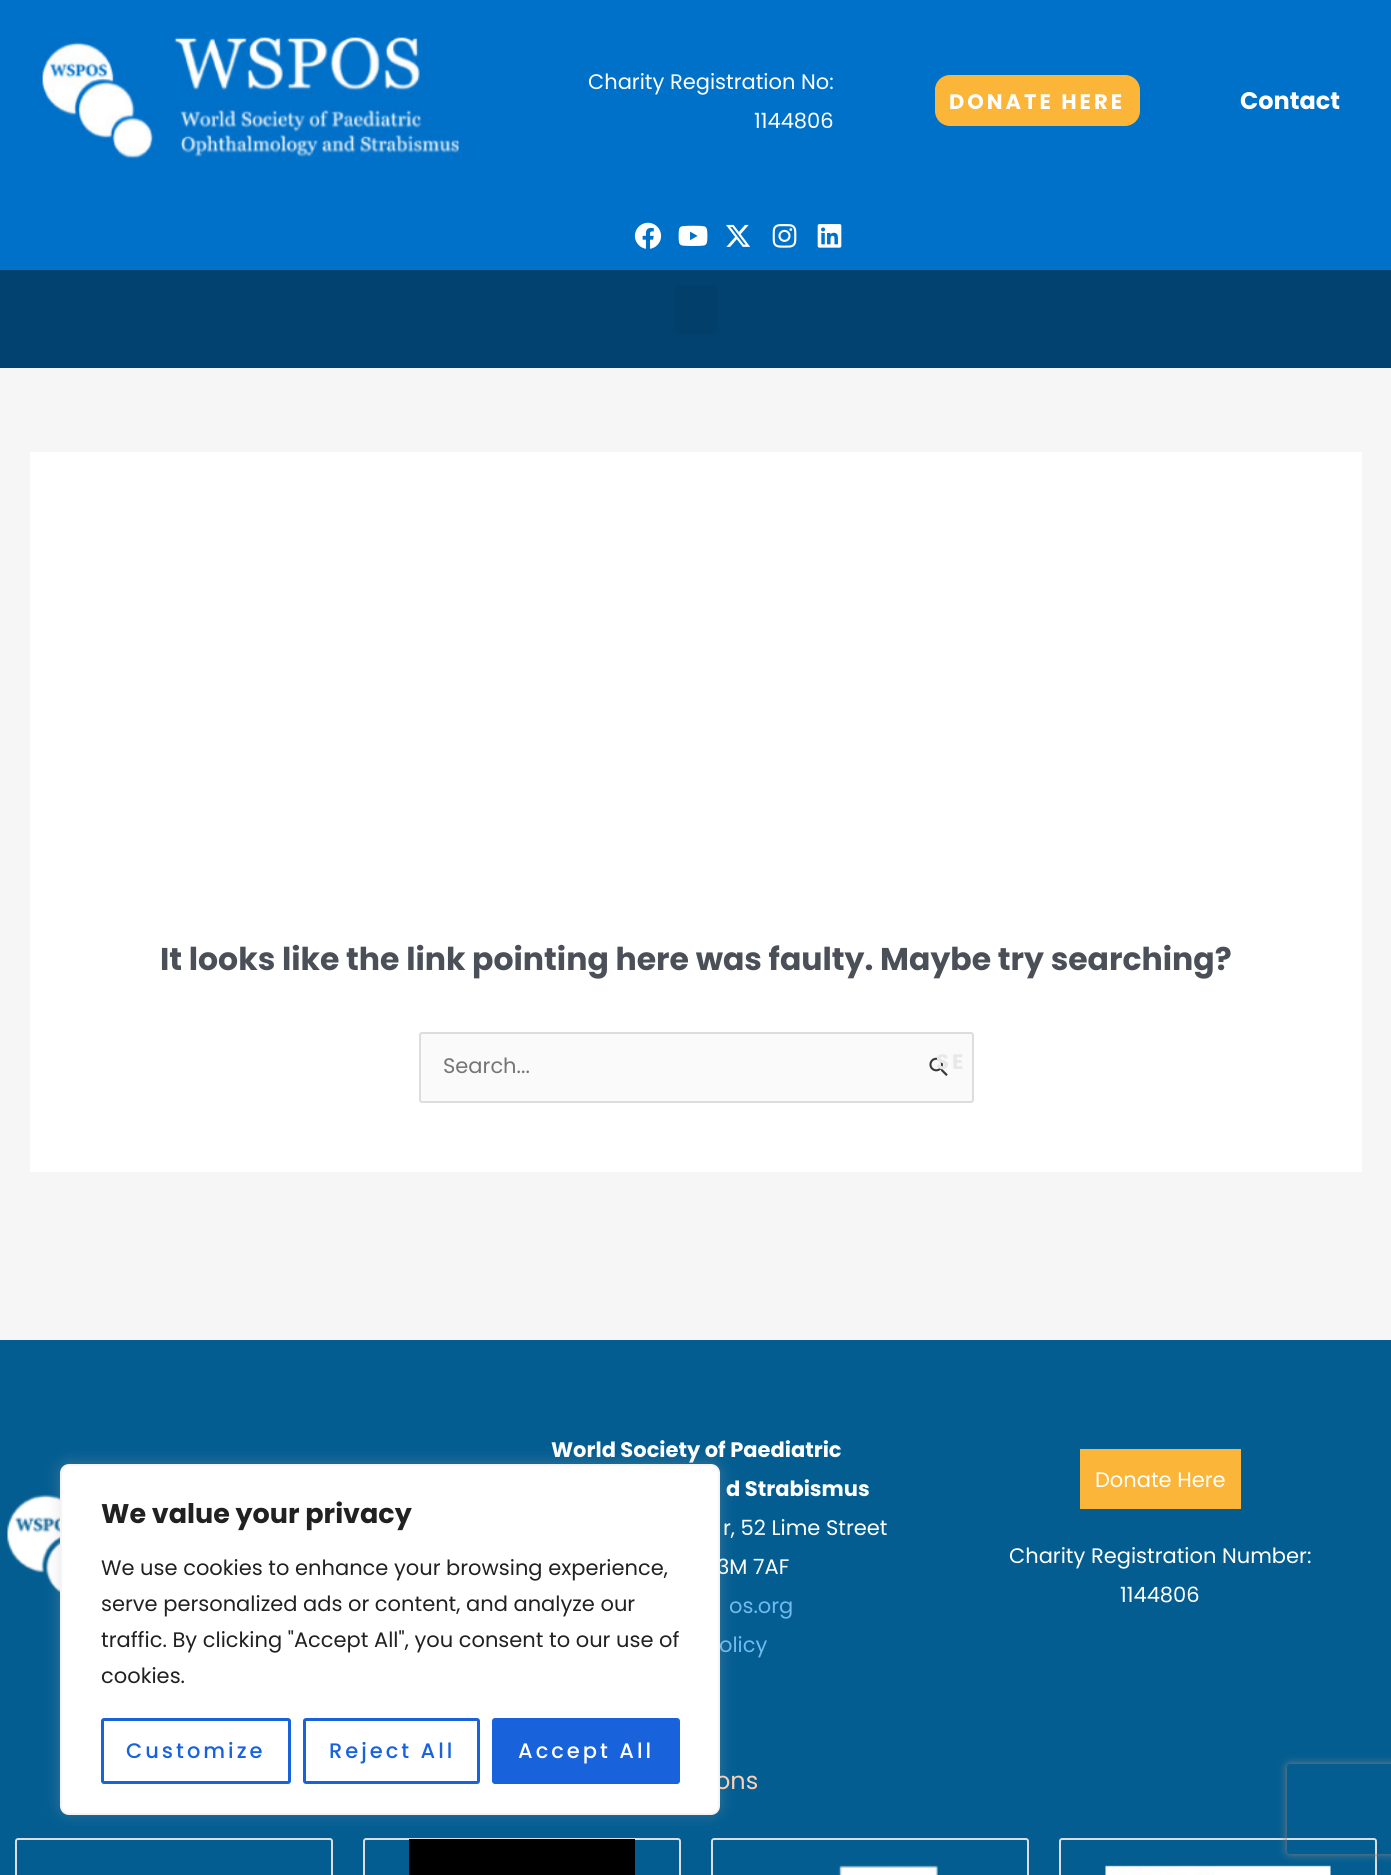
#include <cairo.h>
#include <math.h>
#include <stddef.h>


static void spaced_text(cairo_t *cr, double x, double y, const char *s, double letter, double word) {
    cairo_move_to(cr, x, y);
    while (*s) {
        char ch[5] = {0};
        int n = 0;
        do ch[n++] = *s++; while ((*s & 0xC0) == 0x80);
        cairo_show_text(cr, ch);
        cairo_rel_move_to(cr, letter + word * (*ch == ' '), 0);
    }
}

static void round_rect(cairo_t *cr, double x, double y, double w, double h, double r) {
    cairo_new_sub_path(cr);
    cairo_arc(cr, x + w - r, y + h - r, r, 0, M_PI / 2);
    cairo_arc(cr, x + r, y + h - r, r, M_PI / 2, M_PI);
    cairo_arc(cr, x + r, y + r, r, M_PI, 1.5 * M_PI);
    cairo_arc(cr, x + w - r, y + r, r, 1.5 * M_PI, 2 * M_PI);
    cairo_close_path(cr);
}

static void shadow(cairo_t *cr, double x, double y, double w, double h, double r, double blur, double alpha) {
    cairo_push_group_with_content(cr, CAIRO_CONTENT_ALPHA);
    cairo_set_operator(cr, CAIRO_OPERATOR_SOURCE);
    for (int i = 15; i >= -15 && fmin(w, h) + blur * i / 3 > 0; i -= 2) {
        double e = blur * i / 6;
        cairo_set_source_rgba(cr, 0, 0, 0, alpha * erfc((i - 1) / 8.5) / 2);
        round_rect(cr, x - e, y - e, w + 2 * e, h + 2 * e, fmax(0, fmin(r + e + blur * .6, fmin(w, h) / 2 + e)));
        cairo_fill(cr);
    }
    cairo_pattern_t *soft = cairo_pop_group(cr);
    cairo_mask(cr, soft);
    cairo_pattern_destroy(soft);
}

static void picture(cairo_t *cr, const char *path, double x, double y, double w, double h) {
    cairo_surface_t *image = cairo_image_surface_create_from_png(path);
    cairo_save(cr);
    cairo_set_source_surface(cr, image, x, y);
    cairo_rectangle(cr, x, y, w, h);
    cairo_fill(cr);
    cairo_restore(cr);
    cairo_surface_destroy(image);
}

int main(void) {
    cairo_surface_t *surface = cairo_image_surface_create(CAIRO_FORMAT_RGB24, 1391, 1875);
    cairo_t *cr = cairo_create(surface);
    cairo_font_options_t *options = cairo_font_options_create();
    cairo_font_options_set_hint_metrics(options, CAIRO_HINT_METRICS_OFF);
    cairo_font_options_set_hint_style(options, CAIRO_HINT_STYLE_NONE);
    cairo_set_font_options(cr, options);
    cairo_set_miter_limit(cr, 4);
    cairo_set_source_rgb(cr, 0.961, 0.961, 0.961);
    cairo_paint(cr);
    cairo_set_source_rgb(cr, 0, 0.443, 0.784);
    cairo_rectangle(cr, 0, 0, 1391, 270);
    cairo_fill(cr);
    picture(cr, "img1.png", 35, 35, 432, 128);
    cairo_select_font_face(cr, "Poppins", CAIRO_FONT_SLANT_NORMAL, CAIRO_FONT_WEIGHT_NORMAL);
    cairo_set_font_size(cr, 21);
    cairo_set_source_rgb(cr, 1, 1, 1);
    cairo_move_to(cr, 588, 89);
    cairo_show_text(cr, "Charity Registration No:");
    cairo_move_to(cr, 754, 128);
    cairo_show_text(cr, "1144806");
    cairo_set_source_rgb(cr, 0.984, 0.71, 0.224);
    round_rect(cr, 935, 75, 205, 51, 15);
    cairo_fill(cr);
    cairo_select_font_face(cr, "Poppins", CAIRO_FONT_SLANT_NORMAL, CAIRO_FONT_WEIGHT_BOLD);
    cairo_set_source_rgb(cr, 1, 1, 1);
    spaced_text(cr, 949, 109, "DONATE HERE", 3, 0);
    cairo_set_font_size(cr, 24);
    cairo_move_to(cr, 1240, 109);
    cairo_show_text(cr, "Contact");
    picture(cr, "img2.png", 634, 222, 28, 27);
    picture(cr, "img3.png", 678, 225, 30, 21);
    picture(cr, "img4.png", 726, 224, 25, 23);
    picture(cr, "img5.png", 772, 224, 25, 24);
    picture(cr, "img6.png", 817, 224, 25, 24);
    cairo_set_source_rgb(cr, 0.008, 0.259, 0.443);
    cairo_rectangle(cr, 0, 270, 1391, 98);
    cairo_fill(cr);
    cairo_set_source_rgb(cr, 0.008, 0.247, 0.42);
    round_rect(cr, 675, 285, 42, 50, 5);
    cairo_fill(cr);
    cairo_set_source_rgb(cr, 1, 1, 1);
    cairo_rectangle(cr, 30, 452, 1332, 720);
    cairo_fill(cr);
    cairo_set_font_size(cr, 31.5);
    cairo_set_source_rgb(cr, 0.294, 0.31, 0.345);
    cairo_move_to(cr, 160, 970);
    cairo_show_text(cr, "It looks like the link pointing here was faulty. Maybe try searching?");
    cairo_set_source_rgb(cr, 0.98, 0.98, 0.98);
    round_rect(cr, 420, 1033, 553, 69, 2);
    cairo_fill_preserve(cr);
    cairo_set_source_rgb(cr, 0.867, 0.867, 0.867);
    cairo_stroke(cr);
    cairo_select_font_face(cr, "Poppins", CAIRO_FONT_SLANT_NORMAL, CAIRO_FONT_WEIGHT_NORMAL);
    cairo_set_font_size(cr, 21);
    cairo_set_source_rgb(cr, 0.459, 0.459, 0.459);
    cairo_move_to(cr, 443, 1073);
    cairo_show_text(cr, "Search...");
    picture(cr, "img7.png", 929, 1057, 19, 19);
    cairo_select_font_face(cr, "Poppins", CAIRO_FONT_SLANT_NORMAL, CAIRO_FONT_WEIGHT_BOLD);
    cairo_set_source_rgb(cr, 0.91, 0.91, 0.91);
    spaced_text(cr, 936, 1069, "SE", 3, 0);
    cairo_set_source_rgb(cr, 0.012, 0.365, 0.569);
    cairo_rectangle(cr, 0, 1340, 1391, 376);
    cairo_fill(cr);
    picture(cr, "img8.png", 7, 1494, 53, 99);
    cairo_set_source_rgb(cr, 1, 1, 1);
    cairo_move_to(cr, 551, 1457);
    cairo_show_text(cr, "World Society of Paediatric");
    cairo_move_to(cr, 726, 1496);
    cairo_show_text(cr, "d Strabismus");
    cairo_select_font_face(cr, "Poppins", CAIRO_FONT_SLANT_NORMAL, CAIRO_FONT_WEIGHT_NORMAL);
    cairo_move_to(cr, 723, 1535);
    cairo_show_text(cr, "r, 52 Lime Street");
    cairo_move_to(cr, 717, 1574);
    cairo_show_text(cr, "3M 7AF");
    cairo_set_source_rgb(cr, 0.439, 0.733, 0.929);
    cairo_move_to(cr, 729, 1613);
    cairo_show_text(cr, "os.org");
    cairo_move_to(cr, 719, 1652);
    cairo_show_text(cr, "olicy");
    cairo_set_source_rgb(cr, 0.984, 0.71, 0.224);
    cairo_rectangle(cr, 1080, 1449, 161, 60);
    cairo_fill(cr);
    cairo_set_source_rgb(cr, 1, 1, 1);
    cairo_move_to(cr, 1095, 1487);
    cairo_show_text(cr, "Donate Here");
    cairo_move_to(cr, 1009, 1563);
    cairo_show_text(cr, "Charity Registration Number:");
    cairo_move_to(cr, 1120, 1602);
    cairo_show_text(cr, "1144806");
    cairo_set_source_rgb(cr, 0.012, 0.365, 0.569);
    cairo_rectangle(cr, 0, 1716, 1391, 159);
    cairo_fill(cr);
    cairo_set_font_size(cr, 24);
    cairo_set_source_rgb(cr, 1, 0.816, 0.702);
    cairo_move_to(cr, 715, 1789);
    cairo_show_text(cr, "ons");
    cairo_new_path(cr);
    cairo_move_to(cr, 18, 1839);
    cairo_line_to(cr, 330, 1839);
    cairo_curve_to(cr, 331, 1839, 332, 1840, 332, 1841);
    cairo_line_to(cr, 332, 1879);
    cairo_line_to(cr, 16, 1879);
    cairo_line_to(cr, 16, 1841);
    cairo_curve_to(cr, 16, 1840, 17, 1839, 18, 1839);
    cairo_close_path(cr);
    cairo_set_source_rgb(cr, 0.867, 0.867, 0.867);
    cairo_stroke(cr);
    cairo_new_path(cr);
    cairo_move_to(cr, 366, 1839);
    cairo_line_to(cr, 678, 1839);
    cairo_curve_to(cr, 679, 1839, 680, 1840, 680, 1841);
    cairo_line_to(cr, 680, 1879);
    cairo_line_to(cr, 364, 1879);
    cairo_line_to(cr, 364, 1841);
    cairo_curve_to(cr, 364, 1840, 365, 1839, 366, 1839);
    cairo_close_path(cr);
    cairo_stroke(cr);
    cairo_set_source_rgb(cr, 0, 0, 0);
    cairo_rectangle(cr, 409, 1839, 226, 36);
    cairo_fill(cr);
    cairo_new_path(cr);
    cairo_move_to(cr, 714, 1839);
    cairo_line_to(cr, 1026, 1839);
    cairo_curve_to(cr, 1027, 1839, 1028, 1840, 1028, 1841);
    cairo_line_to(cr, 1028, 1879);
    cairo_line_to(cr, 712, 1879);
    cairo_line_to(cr, 712, 1841);
    cairo_curve_to(cr, 712, 1840, 713, 1839, 714, 1839);
    cairo_close_path(cr);
    cairo_set_source_rgb(cr, 0.867, 0.867, 0.867);
    cairo_stroke(cr);
    picture(cr, "img9.png", 838, 1865, 100, 10);
    cairo_new_path(cr);
    cairo_move_to(cr, 1062, 1839);
    cairo_line_to(cr, 1374, 1839);
    cairo_curve_to(cr, 1375, 1839, 1376, 1840, 1376, 1841);
    cairo_line_to(cr, 1376, 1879);
    cairo_line_to(cr, 1060, 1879);
    cairo_line_to(cr, 1060, 1841);
    cairo_curve_to(cr, 1060, 1840, 1061, 1839, 1062, 1839);
    cairo_close_path(cr);
    cairo_stroke(cr);
    picture(cr, "img10.png", 1105, 1865, 226, 10);
    cairo_set_source_rgb(cr, 0.675, 0.671, 0.671);
    shadow(cr, 60, 1463, 660, 351, 9, 7.5, 0.3);
    cairo_set_source_rgb(cr, 1, 1, 1);
    round_rect(cr, 61, 1465, 658, 349, 8);
    cairo_fill_preserve(cr);
    cairo_set_source_rgb(cr, 0.957, 0.957, 0.957);
    cairo_stroke(cr);
    cairo_select_font_face(cr, "Poppins", CAIRO_FONT_SLANT_NORMAL, CAIRO_FONT_WEIGHT_BOLD);
    cairo_set_font_size(cr, 27);
    cairo_set_source_rgb(cr, 0.129, 0.129, 0.129);
    cairo_move_to(cr, 101, 1523);
    cairo_show_text(cr, "We value your privacy");
    cairo_select_font_face(cr, "Poppins", CAIRO_FONT_SLANT_NORMAL, CAIRO_FONT_WEIGHT_NORMAL);
    cairo_set_font_size(cr, 21);
    cairo_move_to(cr, 101, 1575);
    cairo_show_text(cr, "We use cookies to enhance your browsing experience,");
    cairo_move_to(cr, 101, 1611);
    cairo_show_text(cr, "serve personalized ads or content, and analyze our");
    cairo_move_to(cr, 101, 1647);
    cairo_show_text(cr, "traffic. By clicking \"Accept All\", you consent to our use of");
    cairo_move_to(cr, 101, 1683);
    cairo_show_text(cr, "cookies.");
    round_rect(cr, 102.5, 1719.5, 187, 63, 1.5);
    cairo_set_source_rgb(cr, 0.094, 0.388, 0.863);
    cairo_set_line_width(cr, 3);
    cairo_stroke(cr);
    cairo_select_font_face(cr, "Poppins Medium", CAIRO_FONT_SLANT_NORMAL, CAIRO_FONT_WEIGHT_NORMAL);
    spaced_text(cr, 126, 1758, "Customize", 3, 0);
    round_rect(cr, 304.5, 1719.5, 174, 63, 1.5);
    cairo_stroke(cr);
    spaced_text(cr, 329, 1758, "Reject All", 3, 0);
    round_rect(cr, 493.5, 1719.5, 185, 63, 1.5);
    cairo_fill_preserve(cr);
    cairo_stroke(cr);
    cairo_set_source_rgb(cr, 1, 1, 1);
    spaced_text(cr, 518, 1758, "Accept All", 3, 0);
    cairo_save(cr);
    cairo_set_fill_rule(cr, CAIRO_FILL_RULE_EVEN_ODD);
    cairo_new_path(cr);
    cairo_move_to(cr, 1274, 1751);
    cairo_line_to(cr, 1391, 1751);
    cairo_line_to(cr, 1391, 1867);
    cairo_line_to(cr, 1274, 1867);
    cairo_close_path(cr);
    cairo_move_to(cr, 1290, 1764);
    cairo_line_to(cr, 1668, 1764);
    cairo_curve_to(cr, 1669.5, 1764, 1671, 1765.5, 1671, 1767);
    cairo_line_to(cr, 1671, 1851);
    cairo_curve_to(cr, 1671, 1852.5, 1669.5, 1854, 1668, 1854);
    cairo_line_to(cr, 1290, 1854);
    cairo_curve_to(cr, 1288.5, 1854, 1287, 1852.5, 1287, 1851);
    cairo_line_to(cr, 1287, 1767);
    cairo_curve_to(cr, 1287, 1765.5, 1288.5, 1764, 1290, 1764);
    cairo_close_path(cr);
    cairo_clip(cr);
    cairo_set_source_rgb(cr, 0.502, 0.502, 0.502);
    shadow(cr, 1287, 1764, 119, 90, 3, 4, 1);
    cairo_restore(cr);
    cairo_surface_write_to_png(surface, "page.png");
    cairo_font_options_destroy(options);
    cairo_destroy(cr);
    cairo_surface_destroy(surface);
    return 0;
}
